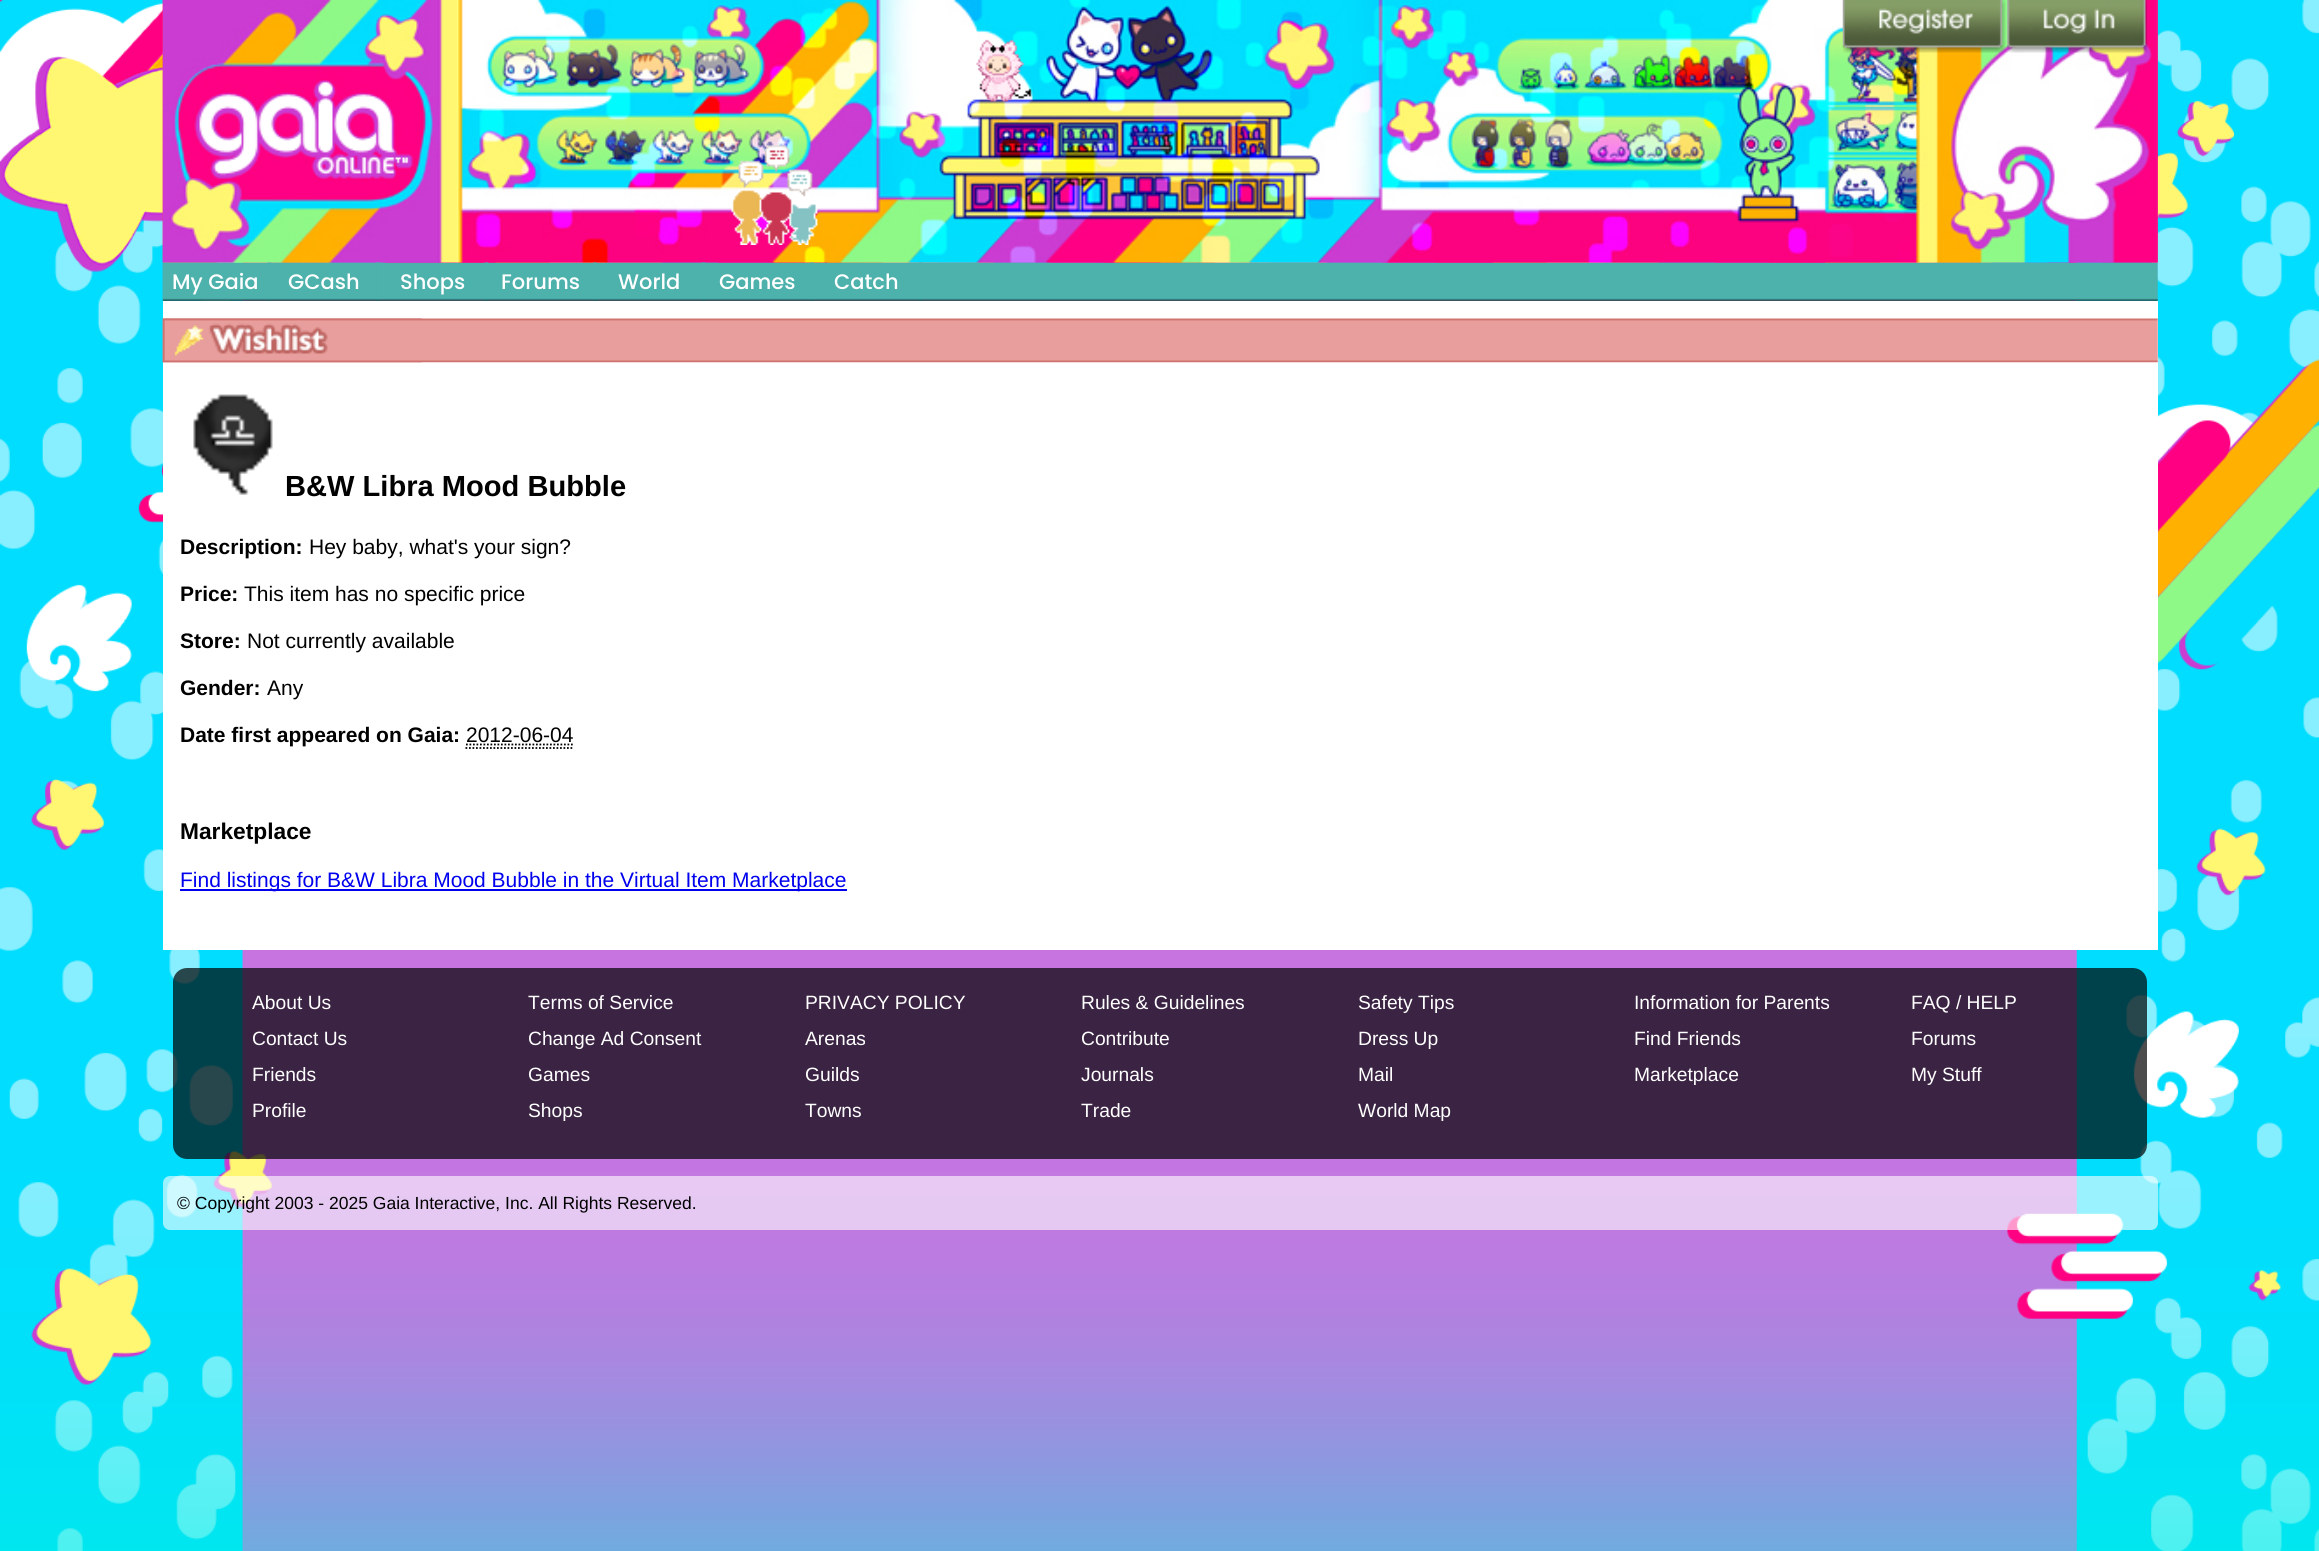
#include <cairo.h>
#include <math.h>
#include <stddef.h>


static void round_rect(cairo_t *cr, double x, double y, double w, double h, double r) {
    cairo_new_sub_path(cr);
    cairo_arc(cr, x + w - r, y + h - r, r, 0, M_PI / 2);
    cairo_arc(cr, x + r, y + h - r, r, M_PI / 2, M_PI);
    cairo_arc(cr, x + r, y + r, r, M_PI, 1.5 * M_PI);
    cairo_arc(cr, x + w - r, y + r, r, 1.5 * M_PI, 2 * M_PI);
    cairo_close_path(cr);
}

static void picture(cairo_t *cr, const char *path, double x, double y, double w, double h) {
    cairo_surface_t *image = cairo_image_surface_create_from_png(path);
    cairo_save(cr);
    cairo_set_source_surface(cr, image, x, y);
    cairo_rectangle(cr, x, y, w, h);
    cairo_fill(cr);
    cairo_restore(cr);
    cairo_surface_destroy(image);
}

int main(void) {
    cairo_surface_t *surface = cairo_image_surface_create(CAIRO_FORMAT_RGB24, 2319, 1551);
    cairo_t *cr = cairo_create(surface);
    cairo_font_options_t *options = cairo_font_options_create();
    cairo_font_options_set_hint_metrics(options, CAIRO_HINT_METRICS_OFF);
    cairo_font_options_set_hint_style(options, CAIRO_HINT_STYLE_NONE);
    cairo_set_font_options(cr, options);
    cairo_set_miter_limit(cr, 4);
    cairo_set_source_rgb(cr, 1, 1, 1);
    cairo_paint(cr);
    picture(cr, "img1.png", 0, 0, 2319, 1551);
    picture(cr, "img2.png", 162, 0, 1996, 263);
    picture(cr, "img9.png", 162, 262, 1996, 39);
    picture(cr, "img3.png", 162, 0, 1996, 263);
    picture(cr, "img4.png", 1842, 0, 164, 53);
    picture(cr, "img5.png", 2007, 0, 141, 53);
    picture(cr, "img6.png", 976, 39, 56, 63);
    picture(cr, "img7.png", 199, 80, 210, 96);
    picture(cr, "img8.png", 731, 144, 87, 101);
    picture(cr, "img10.png", 162, 264, 1, 36);
    cairo_select_font_face(cr, "Poppins Medium", CAIRO_FONT_SLANT_NORMAL, CAIRO_FONT_WEIGHT_NORMAL);
    cairo_set_font_size(cr, 21);
    cairo_set_source_rgb(cr, 1, 1, 1);
    cairo_move_to(cr, 172, 289);
    cairo_show_text(cr, "My Gaia");
    picture(cr, "img11.png", 267, 262, 5, 39);
    cairo_move_to(cr, 288, 289);
    cairo_show_text(cr, "GCash");
    picture(cr, "img12.png", 376, 262, 4, 39);
    cairo_move_to(cr, 400, 289);
    cairo_show_text(cr, "Shops");
    picture(cr, "img13.png", 484, 262, 5, 39);
    cairo_move_to(cr, 501, 289);
    cairo_show_text(cr, "Forums");
    picture(cr, "img14.png", 593, 262, 4, 39);
    cairo_move_to(cr, 618, 289);
    cairo_show_text(cr, "World");
    picture(cr, "img15.png", 701, 262, 5, 39);
    cairo_move_to(cr, 719, 289);
    cairo_show_text(cr, "Games");
    picture(cr, "img16.png", 810, 262, 4, 39);
    cairo_move_to(cr, 834, 289);
    cairo_show_text(cr, "Catch");
    picture(cr, "img17.png", 918, 262, 5, 39);
    cairo_rectangle(cr, 163, 301, 1995, 649);
    cairo_fill(cr);
    picture(cr, "img18.png", 162, 318, 1996, 45);
    picture(cr, "img19.png", 162, 318, 260, 45);
    picture(cr, "img20.png", 193, 394, 80, 101);
    cairo_select_font_face(cr, "Liberation Sans", CAIRO_FONT_SLANT_NORMAL, CAIRO_FONT_WEIGHT_BOLD);
    cairo_set_font_size(cr, 29.1);
    cairo_set_source_rgb(cr, 0, 0, 0);
    cairo_move_to(cr, 285, 496);
    cairo_show_text(cr, "B&W Libra Mood Bubble");
    cairo_set_font_size(cr, 21);
    cairo_move_to(cr, 180, 554);
    cairo_show_text(cr, "Description:");
    cairo_select_font_face(cr, "Liberation Sans", CAIRO_FONT_SLANT_NORMAL, CAIRO_FONT_WEIGHT_NORMAL);
    cairo_move_to(cr, 309, 554);
    cairo_show_text(cr, "Hey baby, what's your sign?");
    cairo_select_font_face(cr, "Liberation Sans", CAIRO_FONT_SLANT_NORMAL, CAIRO_FONT_WEIGHT_BOLD);
    cairo_move_to(cr, 180, 601);
    cairo_show_text(cr, "Price:");
    cairo_select_font_face(cr, "Liberation Sans", CAIRO_FONT_SLANT_NORMAL, CAIRO_FONT_WEIGHT_NORMAL);
    cairo_move_to(cr, 244, 601);
    cairo_show_text(cr, "This item has no specific price");
    cairo_select_font_face(cr, "Liberation Sans", CAIRO_FONT_SLANT_NORMAL, CAIRO_FONT_WEIGHT_BOLD);
    cairo_move_to(cr, 180, 648);
    cairo_show_text(cr, "Store:");
    cairo_select_font_face(cr, "Liberation Sans", CAIRO_FONT_SLANT_NORMAL, CAIRO_FONT_WEIGHT_NORMAL);
    cairo_move_to(cr, 247, 648);
    cairo_show_text(cr, "Not currently available");
    cairo_select_font_face(cr, "Liberation Sans", CAIRO_FONT_SLANT_NORMAL, CAIRO_FONT_WEIGHT_BOLD);
    cairo_move_to(cr, 180, 695);
    cairo_show_text(cr, "Gender:");
    cairo_select_font_face(cr, "Liberation Sans", CAIRO_FONT_SLANT_NORMAL, CAIRO_FONT_WEIGHT_NORMAL);
    cairo_move_to(cr, 267, 695);
    cairo_show_text(cr, "Any");
    cairo_select_font_face(cr, "Liberation Sans", CAIRO_FONT_SLANT_NORMAL, CAIRO_FONT_WEIGHT_BOLD);
    cairo_move_to(cr, 180, 742);
    cairo_show_text(cr, "Date first appeared on Gaia:");
    cairo_select_font_face(cr, "Liberation Sans", CAIRO_FONT_SLANT_NORMAL, CAIRO_FONT_WEIGHT_NORMAL);
    cairo_move_to(cr, 466, 742);
    cairo_show_text(cr, "2012-06-04");
    cairo_new_path(cr);
    cairo_move_to(cr, 465.5, 748);
    cairo_line_to(cr, 574, 748);
    cairo_set_line_width(cr, 1.8);
    cairo_set_dash(cr, (double[]){1.75, 1.75}, 2, 0);
    cairo_stroke(cr);
    cairo_new_path(cr);
    cairo_move_to(cr, 466, 744.5);
    cairo_line_to(cr, 573.5, 744.5);
    cairo_stroke(cr);
    cairo_select_font_face(cr, "Liberation Sans", CAIRO_FONT_SLANT_NORMAL, CAIRO_FONT_WEIGHT_BOLD);
    cairo_set_font_size(cr, 22.75);
    cairo_move_to(cr, 180, 839);
    cairo_show_text(cr, "Marketplace");
    cairo_set_source_rgb(cr, 0, 0, 0.933);
    cairo_rectangle(cr, 180, 889, 667, 2);
    cairo_fill(cr);
    cairo_select_font_face(cr, "Liberation Sans", CAIRO_FONT_SLANT_NORMAL, CAIRO_FONT_WEIGHT_NORMAL);
    cairo_set_font_size(cr, 21);
    cairo_move_to(cr, 180, 887);
    cairo_show_text(cr, "Find listings for B&W Libra Mood Bubble in the Virtual Item Marketplace");
    cairo_set_source_rgba(cr, 0, 0, 0, 0.7);
    round_rect(cr, 173, 968, 1974, 191, 14);
    cairo_fill(cr);
    cairo_set_font_size(cr, 19.25);
    cairo_set_source_rgb(cr, 1, 1, 1);
    cairo_move_to(cr, 252, 1009);
    cairo_show_text(cr, "About Us");
    cairo_move_to(cr, 528, 1009);
    cairo_show_text(cr, "Terms of Service");
    cairo_move_to(cr, 805, 1009);
    cairo_show_text(cr, "PRIVACY POLICY");
    cairo_move_to(cr, 1081, 1009);
    cairo_show_text(cr, "Rules & Guidelines");
    cairo_move_to(cr, 1358, 1009);
    cairo_show_text(cr, "Safety Tips");
    cairo_move_to(cr, 1634, 1009);
    cairo_show_text(cr, "Information for Parents");
    cairo_move_to(cr, 1911, 1009);
    cairo_show_text(cr, "FAQ / HELP");
    cairo_move_to(cr, 252, 1045);
    cairo_show_text(cr, "Contact Us");
    cairo_move_to(cr, 528, 1045);
    cairo_show_text(cr, "Change Ad Consent");
    cairo_move_to(cr, 805, 1045);
    cairo_show_text(cr, "Arenas");
    cairo_move_to(cr, 1081, 1045);
    cairo_show_text(cr, "Contribute");
    cairo_move_to(cr, 1358, 1045);
    cairo_show_text(cr, "Dress Up");
    cairo_move_to(cr, 1634, 1045);
    cairo_show_text(cr, "Find Friends");
    cairo_move_to(cr, 1911, 1045);
    cairo_show_text(cr, "Forums");
    cairo_move_to(cr, 252, 1081);
    cairo_show_text(cr, "Friends");
    cairo_move_to(cr, 528, 1081);
    cairo_show_text(cr, "Games");
    cairo_move_to(cr, 805, 1081);
    cairo_show_text(cr, "Guilds");
    cairo_move_to(cr, 1081, 1081);
    cairo_show_text(cr, "Journals");
    cairo_move_to(cr, 1358, 1081);
    cairo_show_text(cr, "Mail");
    cairo_move_to(cr, 1634, 1081);
    cairo_show_text(cr, "Marketplace");
    cairo_move_to(cr, 1911, 1081);
    cairo_show_text(cr, "My Stuff");
    cairo_move_to(cr, 252, 1117);
    cairo_show_text(cr, "Profile");
    cairo_move_to(cr, 528, 1117);
    cairo_show_text(cr, "Shops");
    cairo_move_to(cr, 805, 1117);
    cairo_show_text(cr, "Towns");
    cairo_move_to(cr, 1081, 1117);
    cairo_show_text(cr, "Trade");
    cairo_move_to(cr, 1358, 1117);
    cairo_show_text(cr, "World Map");
    cairo_set_source_rgba(cr, 1, 1, 1, 0.6);
    round_rect(cr, 163, 1176, 1995, 54, 7);
    cairo_fill(cr);
    cairo_set_font_size(cr, 17.5);
    cairo_set_source_rgb(cr, 0, 0, 0);
    cairo_move_to(cr, 177, 1209);
    cairo_show_text(cr, "© Copyright 2003 - 2025 Gaia Interactive, Inc. All Rights Reserved.");
    cairo_surface_write_to_png(surface, "page.png");
    cairo_font_options_destroy(options);
    cairo_destroy(cr);
    cairo_surface_destroy(surface);
    return 0;
}
